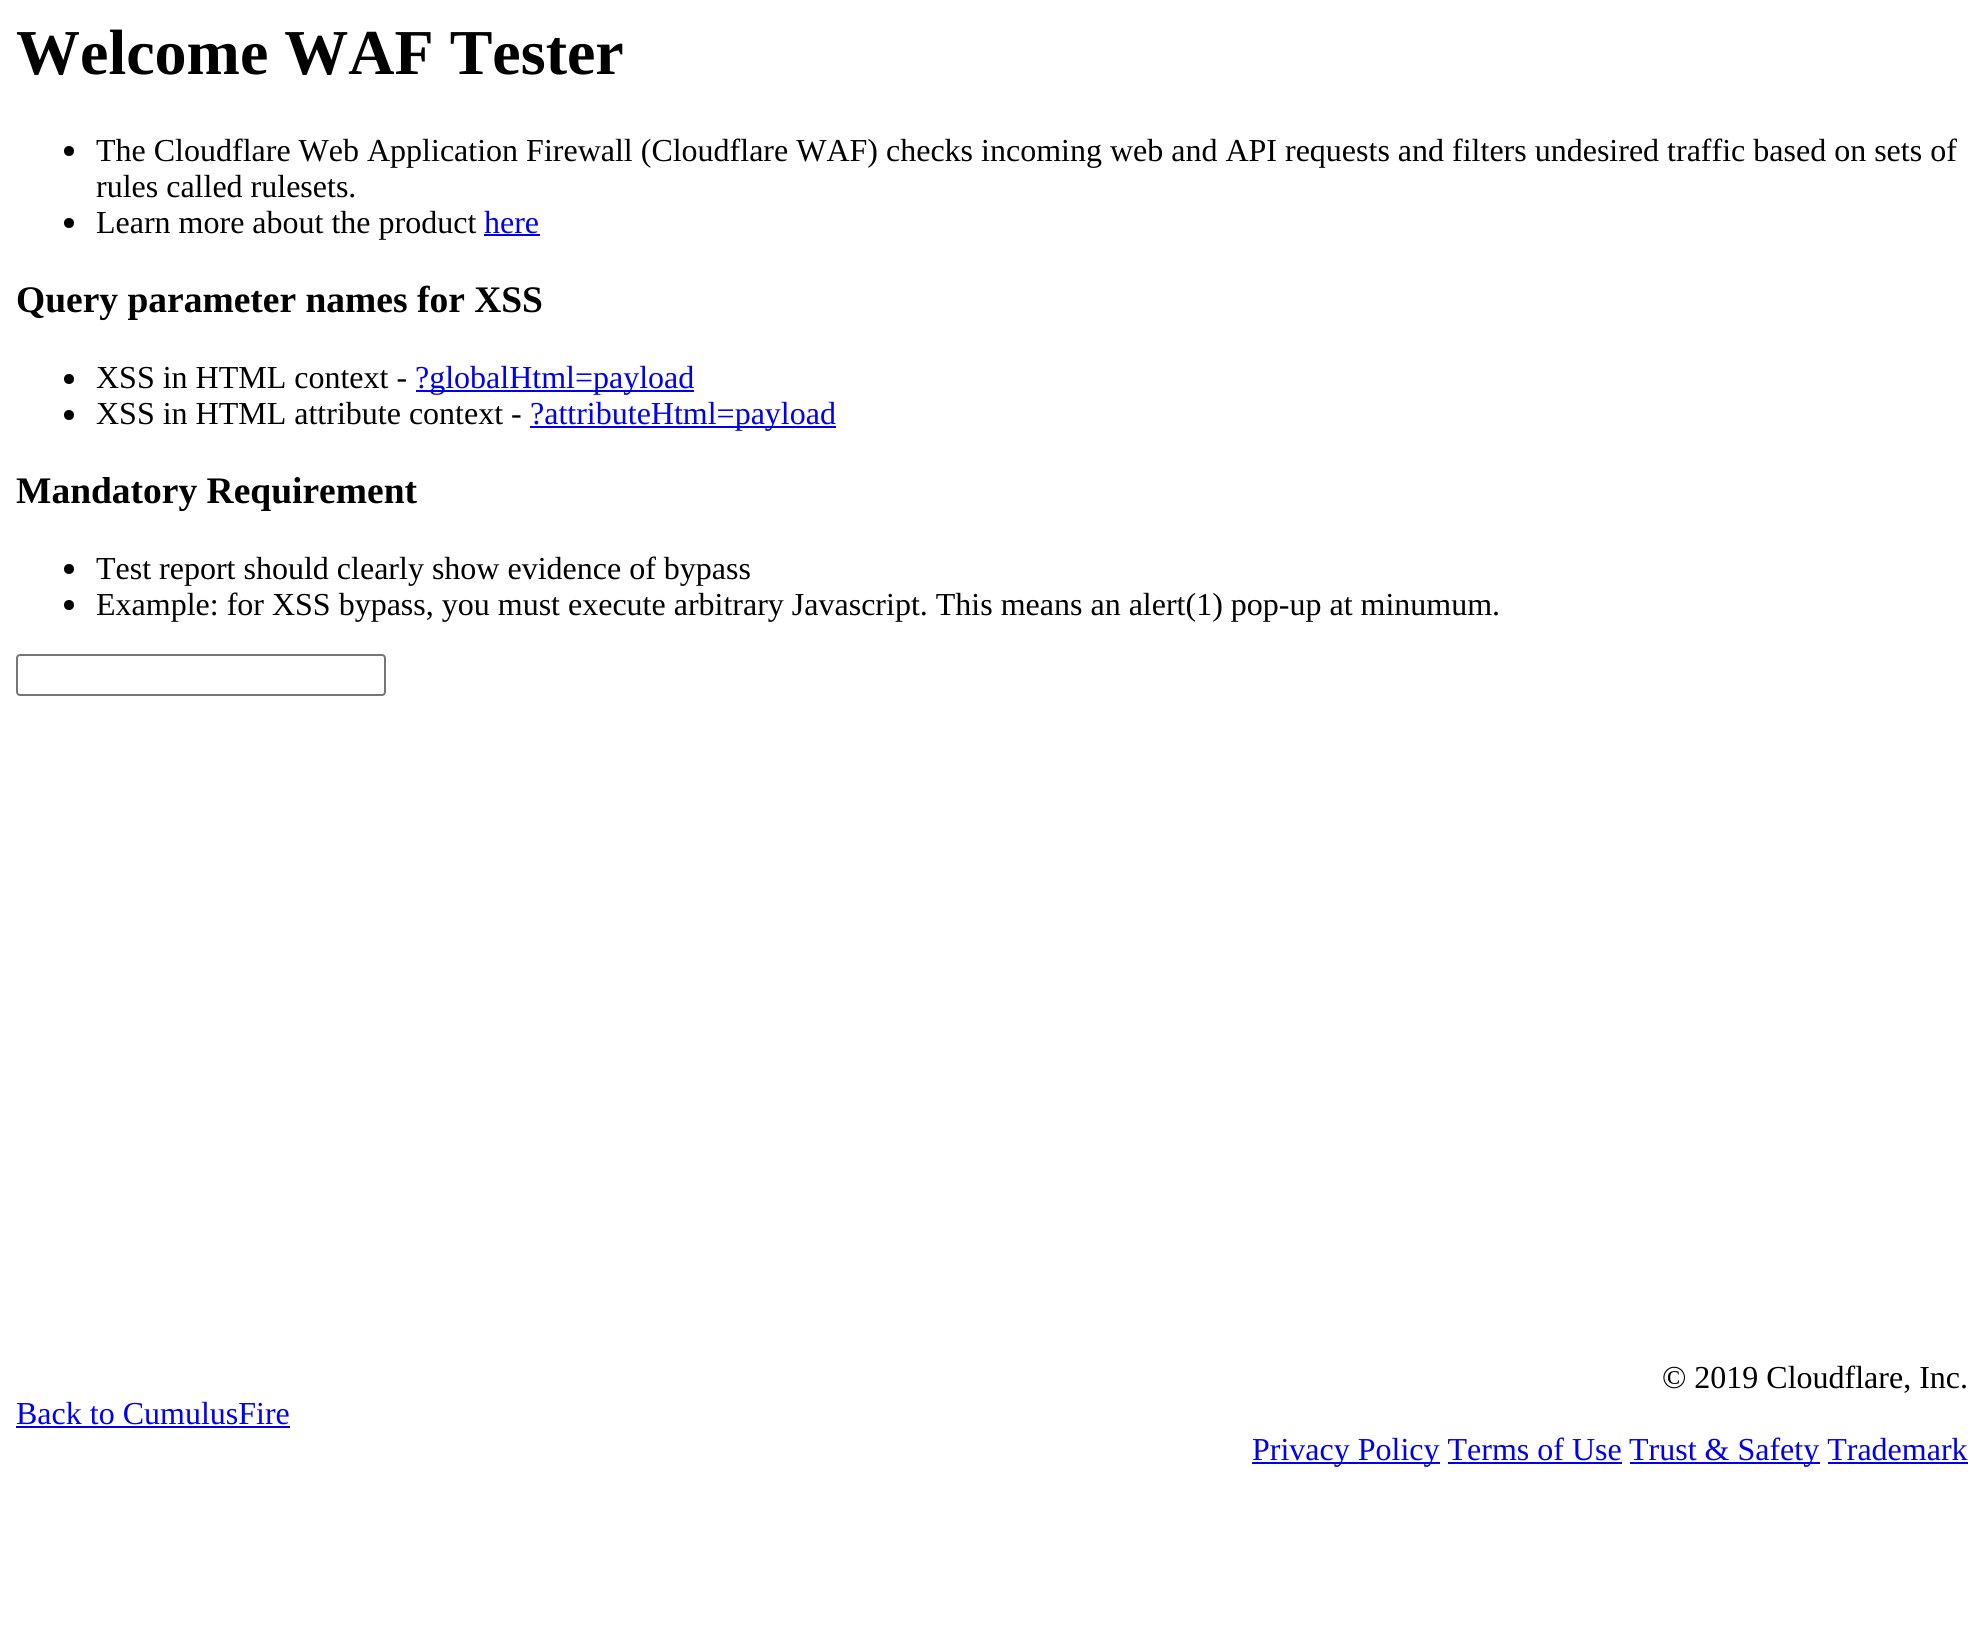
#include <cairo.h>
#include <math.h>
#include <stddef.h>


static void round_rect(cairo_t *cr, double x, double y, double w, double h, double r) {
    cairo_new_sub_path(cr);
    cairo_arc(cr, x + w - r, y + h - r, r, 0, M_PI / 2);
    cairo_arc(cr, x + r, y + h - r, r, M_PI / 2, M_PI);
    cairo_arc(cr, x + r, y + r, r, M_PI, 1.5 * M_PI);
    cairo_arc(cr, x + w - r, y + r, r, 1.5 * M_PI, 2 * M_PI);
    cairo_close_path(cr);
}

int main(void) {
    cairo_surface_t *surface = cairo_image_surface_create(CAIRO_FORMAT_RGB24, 1983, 1651);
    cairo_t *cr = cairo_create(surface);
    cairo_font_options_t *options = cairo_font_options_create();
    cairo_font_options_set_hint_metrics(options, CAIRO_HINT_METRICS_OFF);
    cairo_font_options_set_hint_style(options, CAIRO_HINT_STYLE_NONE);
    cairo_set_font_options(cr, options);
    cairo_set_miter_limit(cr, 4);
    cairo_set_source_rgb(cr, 1, 1, 1);
    cairo_paint(cr);
    cairo_select_font_face(cr, "Liberation Serif", CAIRO_FONT_SLANT_NORMAL, CAIRO_FONT_WEIGHT_BOLD);
    cairo_set_font_size(cr, 64);
    cairo_set_source_rgb(cr, 0, 0, 0);
    cairo_move_to(cr, 16, 74);
    cairo_show_text(cr, "Welcome WAF Tester");
    cairo_new_path(cr);
    cairo_arc(cr, 69, 151, 5, 0, 2 * M_PI);
    cairo_fill(cr);
    cairo_select_font_face(cr, "Liberation Serif", CAIRO_FONT_SLANT_NORMAL, CAIRO_FONT_WEIGHT_NORMAL);
    cairo_set_font_size(cr, 32);
    cairo_move_to(cr, 96, 161);
    cairo_show_text(cr, "The Cloudflare Web Application Firewall (Cloudflare WAF) checks incoming web and API requests and filters undesired traffic based on sets of");
    cairo_move_to(cr, 96, 197);
    cairo_show_text(cr, "rules called rulesets.");
    cairo_new_path(cr);
    cairo_arc(cr, 69, 223, 5, 0, 2 * M_PI);
    cairo_fill(cr);
    cairo_move_to(cr, 96, 233);
    cairo_show_text(cr, "Learn more about the product");
    cairo_set_source_rgb(cr, 0, 0, 0.933);
    cairo_move_to(cr, 484, 233);
    cairo_show_text(cr, "here");
    cairo_rectangle(cr, 484, 234, 56, 2);
    cairo_fill(cr);
    cairo_select_font_face(cr, "Liberation Serif", CAIRO_FONT_SLANT_NORMAL, CAIRO_FONT_WEIGHT_BOLD);
    cairo_set_font_size(cr, 37.5);
    cairo_set_source_rgb(cr, 0, 0, 0);
    cairo_move_to(cr, 16, 312);
    cairo_show_text(cr, "Query parameter names for XSS");
    cairo_new_path(cr);
    cairo_arc(cr, 69, 379, 5, 0, 2 * M_PI);
    cairo_fill(cr);
    cairo_select_font_face(cr, "Liberation Serif", CAIRO_FONT_SLANT_NORMAL, CAIRO_FONT_WEIGHT_NORMAL);
    cairo_set_font_size(cr, 32);
    cairo_move_to(cr, 96, 388);
    cairo_show_text(cr, "XSS in HTML context -");
    cairo_set_source_rgb(cr, 0, 0, 0.933);
    cairo_rectangle(cr, 416, 390, 278, 2);
    cairo_fill(cr);
    cairo_move_to(cr, 415, 388);
    cairo_show_text(cr, "?globalHtml=payload");
    cairo_set_source_rgb(cr, 0, 0, 0);
    cairo_new_path(cr);
    cairo_arc(cr, 69, 415, 5, 0, 2 * M_PI);
    cairo_fill(cr);
    cairo_move_to(cr, 96, 424);
    cairo_show_text(cr, "XSS in HTML attribute context -");
    cairo_set_source_rgb(cr, 0, 0, 0.933);
    cairo_rectangle(cr, 530, 426, 306, 2);
    cairo_fill(cr);
    cairo_move_to(cr, 530, 424);
    cairo_show_text(cr, "?attributeHtml=payload");
    cairo_select_font_face(cr, "Liberation Serif", CAIRO_FONT_SLANT_NORMAL, CAIRO_FONT_WEIGHT_BOLD);
    cairo_set_font_size(cr, 37.5);
    cairo_set_source_rgb(cr, 0, 0, 0);
    cairo_move_to(cr, 16, 503);
    cairo_show_text(cr, "Mandatory Requirement");
    cairo_new_path(cr);
    cairo_arc(cr, 69, 569, 5, 0, 2 * M_PI);
    cairo_fill(cr);
    cairo_select_font_face(cr, "Liberation Serif", CAIRO_FONT_SLANT_NORMAL, CAIRO_FONT_WEIGHT_NORMAL);
    cairo_set_font_size(cr, 32);
    cairo_move_to(cr, 96, 579);
    cairo_show_text(cr, "Test report should clearly show evidence of bypass");
    cairo_new_path(cr);
    cairo_arc(cr, 69, 605, 5, 0, 2 * M_PI);
    cairo_fill(cr);
    cairo_move_to(cr, 96, 615);
    cairo_show_text(cr, "Example: for XSS bypass, you must execute arbitrary Javascript. This means an alert(1) pop-up at minumum.");
    round_rect(cr, 17, 655, 368, 40, 3);
    cairo_set_source_rgb(cr, 0.463, 0.463, 0.463);
    cairo_stroke(cr);
    cairo_set_source_rgb(cr, 0, 0, 0);
    cairo_move_to(cr, 1662, 1388);
    cairo_show_text(cr, "© 2019 Cloudflare, Inc.");
    cairo_set_source_rgb(cr, 0, 0, 0.933);
    cairo_move_to(cr, 16, 1424);
    cairo_show_text(cr, "Back to CumulusFire");
    cairo_rectangle(cr, 16, 1426, 274, 2);
    cairo_fill(cr);
    cairo_rectangle(cr, 1252, 1462, 188, 2);
    cairo_fill(cr);
    cairo_move_to(cr, 1252, 1460);
    cairo_show_text(cr, "Privacy Policy Terms of Use");
    cairo_rectangle(cr, 1630, 1462, 190, 2);
    cairo_fill(cr);
    cairo_move_to(cr, 1629, 1460);
    cairo_show_text(cr, "Trust & Safety Trademark");
    cairo_rectangle(cr, 1448, 1462, 174, 2);
    cairo_fill(cr);
    cairo_rectangle(cr, 1828, 1462, 140, 2);
    cairo_fill(cr);
    cairo_surface_write_to_png(surface, "page.png");
    cairo_font_options_destroy(options);
    cairo_destroy(cr);
    cairo_surface_destroy(surface);
    return 0;
}
